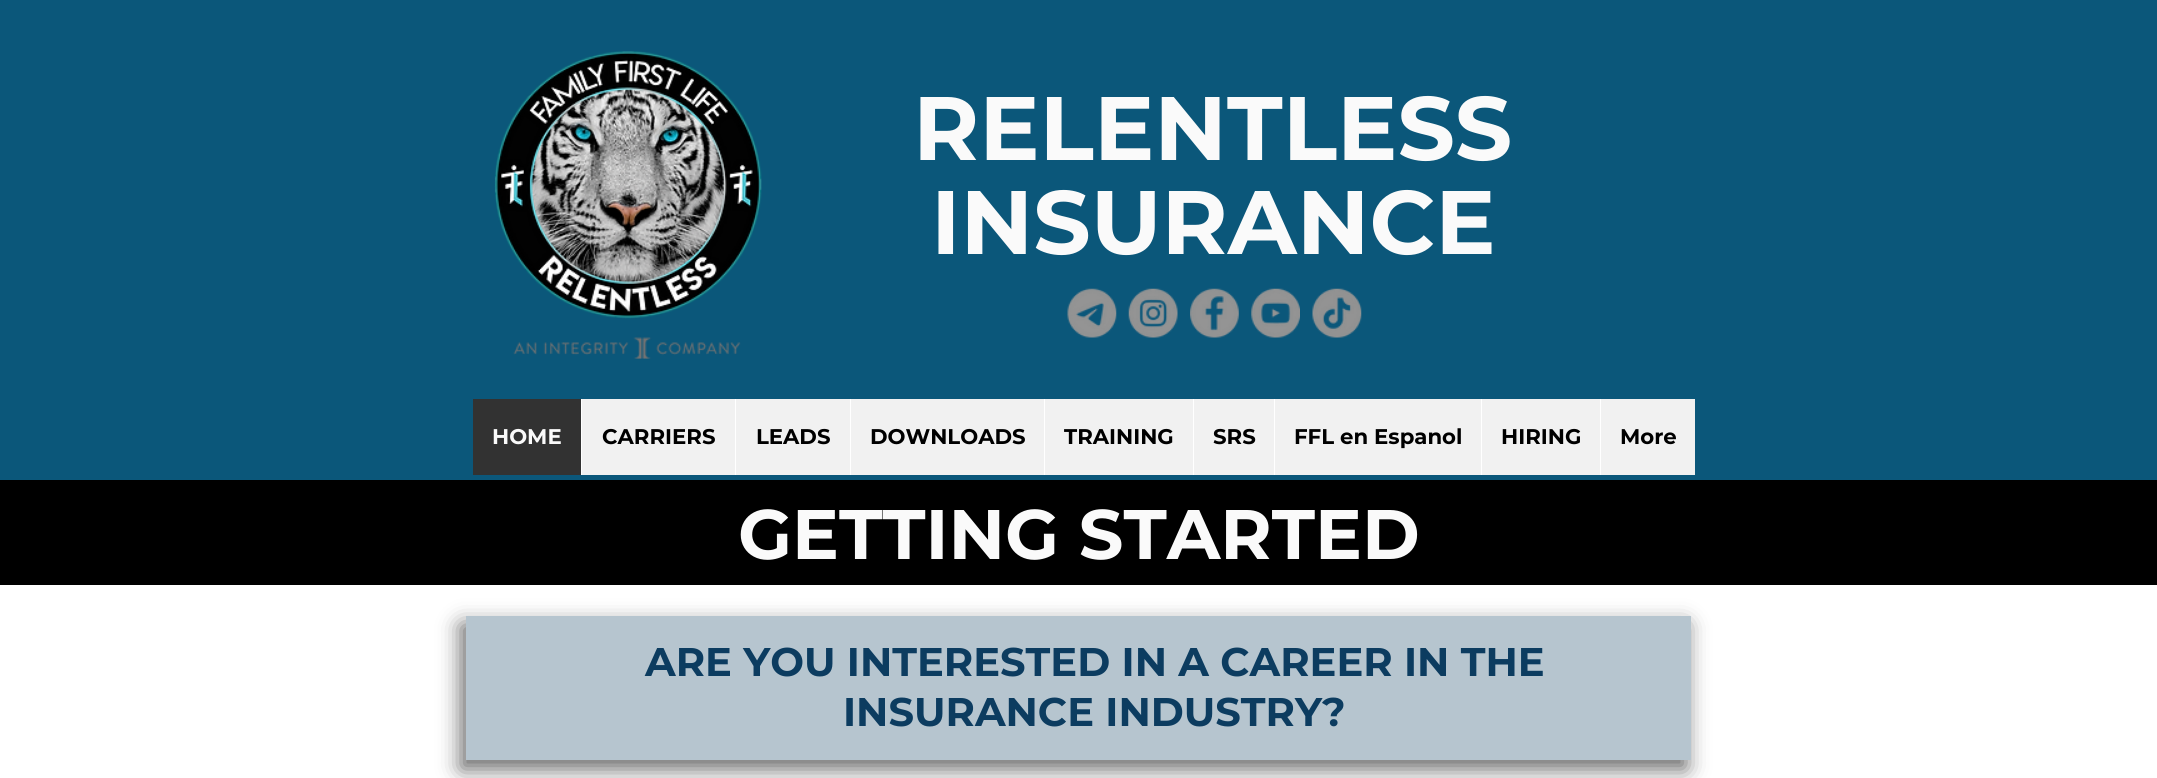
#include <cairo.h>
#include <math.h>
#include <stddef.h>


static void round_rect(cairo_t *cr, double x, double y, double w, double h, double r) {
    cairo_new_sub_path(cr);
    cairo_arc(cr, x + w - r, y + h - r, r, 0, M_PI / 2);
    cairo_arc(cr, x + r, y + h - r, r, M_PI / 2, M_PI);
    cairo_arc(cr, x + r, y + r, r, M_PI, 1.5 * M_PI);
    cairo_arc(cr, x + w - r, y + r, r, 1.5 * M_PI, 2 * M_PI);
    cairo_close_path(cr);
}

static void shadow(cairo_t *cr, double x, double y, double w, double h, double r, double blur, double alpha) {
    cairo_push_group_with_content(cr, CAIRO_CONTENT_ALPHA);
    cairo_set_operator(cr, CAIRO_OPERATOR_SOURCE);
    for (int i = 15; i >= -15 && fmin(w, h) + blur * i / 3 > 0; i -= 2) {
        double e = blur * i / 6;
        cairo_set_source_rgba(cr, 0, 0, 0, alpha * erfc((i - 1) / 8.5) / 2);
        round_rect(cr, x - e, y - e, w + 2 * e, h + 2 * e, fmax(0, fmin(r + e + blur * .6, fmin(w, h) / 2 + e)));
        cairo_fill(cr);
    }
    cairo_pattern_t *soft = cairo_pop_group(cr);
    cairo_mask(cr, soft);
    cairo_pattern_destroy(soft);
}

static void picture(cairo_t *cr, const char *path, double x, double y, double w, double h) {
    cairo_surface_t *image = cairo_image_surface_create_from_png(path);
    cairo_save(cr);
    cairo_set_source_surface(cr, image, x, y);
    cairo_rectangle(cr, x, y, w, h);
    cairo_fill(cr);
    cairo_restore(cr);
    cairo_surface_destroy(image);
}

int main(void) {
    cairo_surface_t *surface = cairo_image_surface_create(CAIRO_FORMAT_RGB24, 2157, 778);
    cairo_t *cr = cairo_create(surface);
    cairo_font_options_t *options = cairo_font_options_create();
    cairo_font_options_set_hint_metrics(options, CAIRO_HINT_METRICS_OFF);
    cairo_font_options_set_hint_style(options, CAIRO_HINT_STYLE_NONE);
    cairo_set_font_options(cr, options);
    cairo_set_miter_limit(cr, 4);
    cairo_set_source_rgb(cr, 0.043, 0.341, 0.478);
    cairo_paint(cr);
    picture(cr, "img1.png", 494, 51, 268, 308);
    cairo_select_font_face(cr, "Montserrat", CAIRO_FONT_SLANT_NORMAL, CAIRO_FONT_WEIGHT_BOLD);
    cairo_set_font_size(cr, 90);
    cairo_set_source_rgb(cr, 0.98, 0.98, 0.98);
    cairo_move_to(cr, 913, 160);
    cairo_show_text(cr, "RELENTLESS");
    cairo_move_to(cr, 931, 254);
    cairo_show_text(cr, "INSURANCE");
    picture(cr, "img2.png", 1067, 288, 50, 50);
    picture(cr, "img3.png", 1128, 288, 50, 50);
    picture(cr, "img4.png", 1190, 288, 49, 50);
    picture(cr, "img5.png", 1251, 288, 49, 50);
    picture(cr, "img6.png", 1312, 288, 50, 50);
    cairo_set_source_rgb(cr, 0.945, 0.945, 0.945);
    cairo_rectangle(cr, 582, 399, 1113, 76);
    cairo_fill(cr);
    cairo_set_source_rgb(cr, 0.196, 0.196, 0.196);
    cairo_rectangle(cr, 473, 399, 108, 76);
    cairo_fill(cr);
    cairo_set_font_size(cr, 21.25);
    cairo_set_source_rgb(cr, 0.98, 0.98, 0.98);
    cairo_move_to(cr, 492, 444);
    cairo_show_text(cr, "HOME");
    cairo_set_source_rgb(cr, 1, 1, 1);
    cairo_rectangle(cr, 581, 399, 1, 76);
    cairo_fill(cr);
    cairo_set_source_rgb(cr, 0, 0, 0);
    cairo_move_to(cr, 602, 444);
    cairo_show_text(cr, "CARRIERS");
    cairo_set_source_rgb(cr, 1, 1, 1);
    cairo_rectangle(cr, 735, 399, 1, 76);
    cairo_fill(cr);
    cairo_set_source_rgb(cr, 0, 0, 0);
    cairo_move_to(cr, 756, 444);
    cairo_show_text(cr, "LEADS");
    cairo_set_source_rgb(cr, 1, 1, 1);
    cairo_rectangle(cr, 850, 399, 1, 76);
    cairo_fill(cr);
    cairo_set_source_rgb(cr, 0, 0, 0);
    cairo_move_to(cr, 870, 444);
    cairo_show_text(cr, "DOWNLOADS");
    cairo_set_source_rgb(cr, 1, 1, 1);
    cairo_rectangle(cr, 1044, 399, 1, 76);
    cairo_fill(cr);
    cairo_set_source_rgb(cr, 0, 0, 0);
    cairo_move_to(cr, 1064, 444);
    cairo_show_text(cr, "TRAINING");
    cairo_set_source_rgb(cr, 1, 1, 1);
    cairo_rectangle(cr, 1193, 399, 1, 76);
    cairo_fill(cr);
    cairo_set_source_rgb(cr, 0, 0, 0);
    cairo_move_to(cr, 1213, 444);
    cairo_show_text(cr, "SRS");
    cairo_set_source_rgb(cr, 1, 1, 1);
    cairo_rectangle(cr, 1274, 399, 1, 76);
    cairo_fill(cr);
    cairo_set_source_rgb(cr, 0, 0, 0);
    cairo_move_to(cr, 1294, 444);
    cairo_show_text(cr, "FFL en Espanol");
    cairo_set_source_rgb(cr, 1, 1, 1);
    cairo_rectangle(cr, 1481, 399, 1, 76);
    cairo_fill(cr);
    cairo_set_source_rgb(cr, 0, 0, 0);
    cairo_move_to(cr, 1501, 444);
    cairo_show_text(cr, "HIRING");
    cairo_set_source_rgb(cr, 1, 1, 1);
    cairo_rectangle(cr, 1600, 399, 1, 76);
    cairo_fill(cr);
    cairo_set_source_rgb(cr, 0, 0, 0);
    cairo_move_to(cr, 1620, 444);
    cairo_show_text(cr, "More");
    cairo_rectangle(cr, 0, 480, 2157, 105);
    cairo_fill(cr);
    cairo_set_font_size(cr, 70);
    cairo_set_source_rgb(cr, 0.98, 0.98, 0.98);
    cairo_move_to(cr, 738, 559);
    cairo_show_text(cr, "GETTING STARTED");
    cairo_set_source_rgb(cr, 1, 1, 1);
    cairo_rectangle(cr, 0, 585, 2157, 193);
    cairo_fill(cr);
    cairo_save(cr);
    cairo_set_fill_rule(cr, CAIRO_FILL_RULE_EVEN_ODD);
    cairo_new_path(cr);
    cairo_move_to(cr, 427, 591);
    cairo_line_to(cr, 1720, 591);
    cairo_line_to(cr, 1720, 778);
    cairo_line_to(cr, 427, 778);
    cairo_close_path(cr);
    cairo_move_to(cr, 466, 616);
    cairo_line_to(cr, 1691, 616);
    cairo_line_to(cr, 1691, 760);
    cairo_line_to(cr, 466, 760);
    cairo_close_path(cr);
    cairo_clip(cr);
    cairo_set_source_rgb(cr, 0, 0, 0);
    shadow(cr, 461, 625, 1225, 144, 0, 11, 0.6);
    cairo_restore(cr);
    cairo_set_source_rgba(cr, 0.047, 0.235, 0.376, 0.3);
    cairo_rectangle(cr, 466, 616, 1225, 144);
    cairo_fill(cr);
    cairo_set_font_size(cr, 40);
    cairo_set_source_rgb(cr, 0.047, 0.235, 0.376);
    cairo_move_to(cr, 645, 676);
    cairo_show_text(cr, "ARE YOU INTERESTED IN A CAREER IN THE");
    cairo_move_to(cr, 843, 726);
    cairo_show_text(cr, "INSURANCE INDUSTRY?");
    cairo_surface_write_to_png(surface, "page.png");
    cairo_font_options_destroy(options);
    cairo_destroy(cr);
    cairo_surface_destroy(surface);
    return 0;
}
